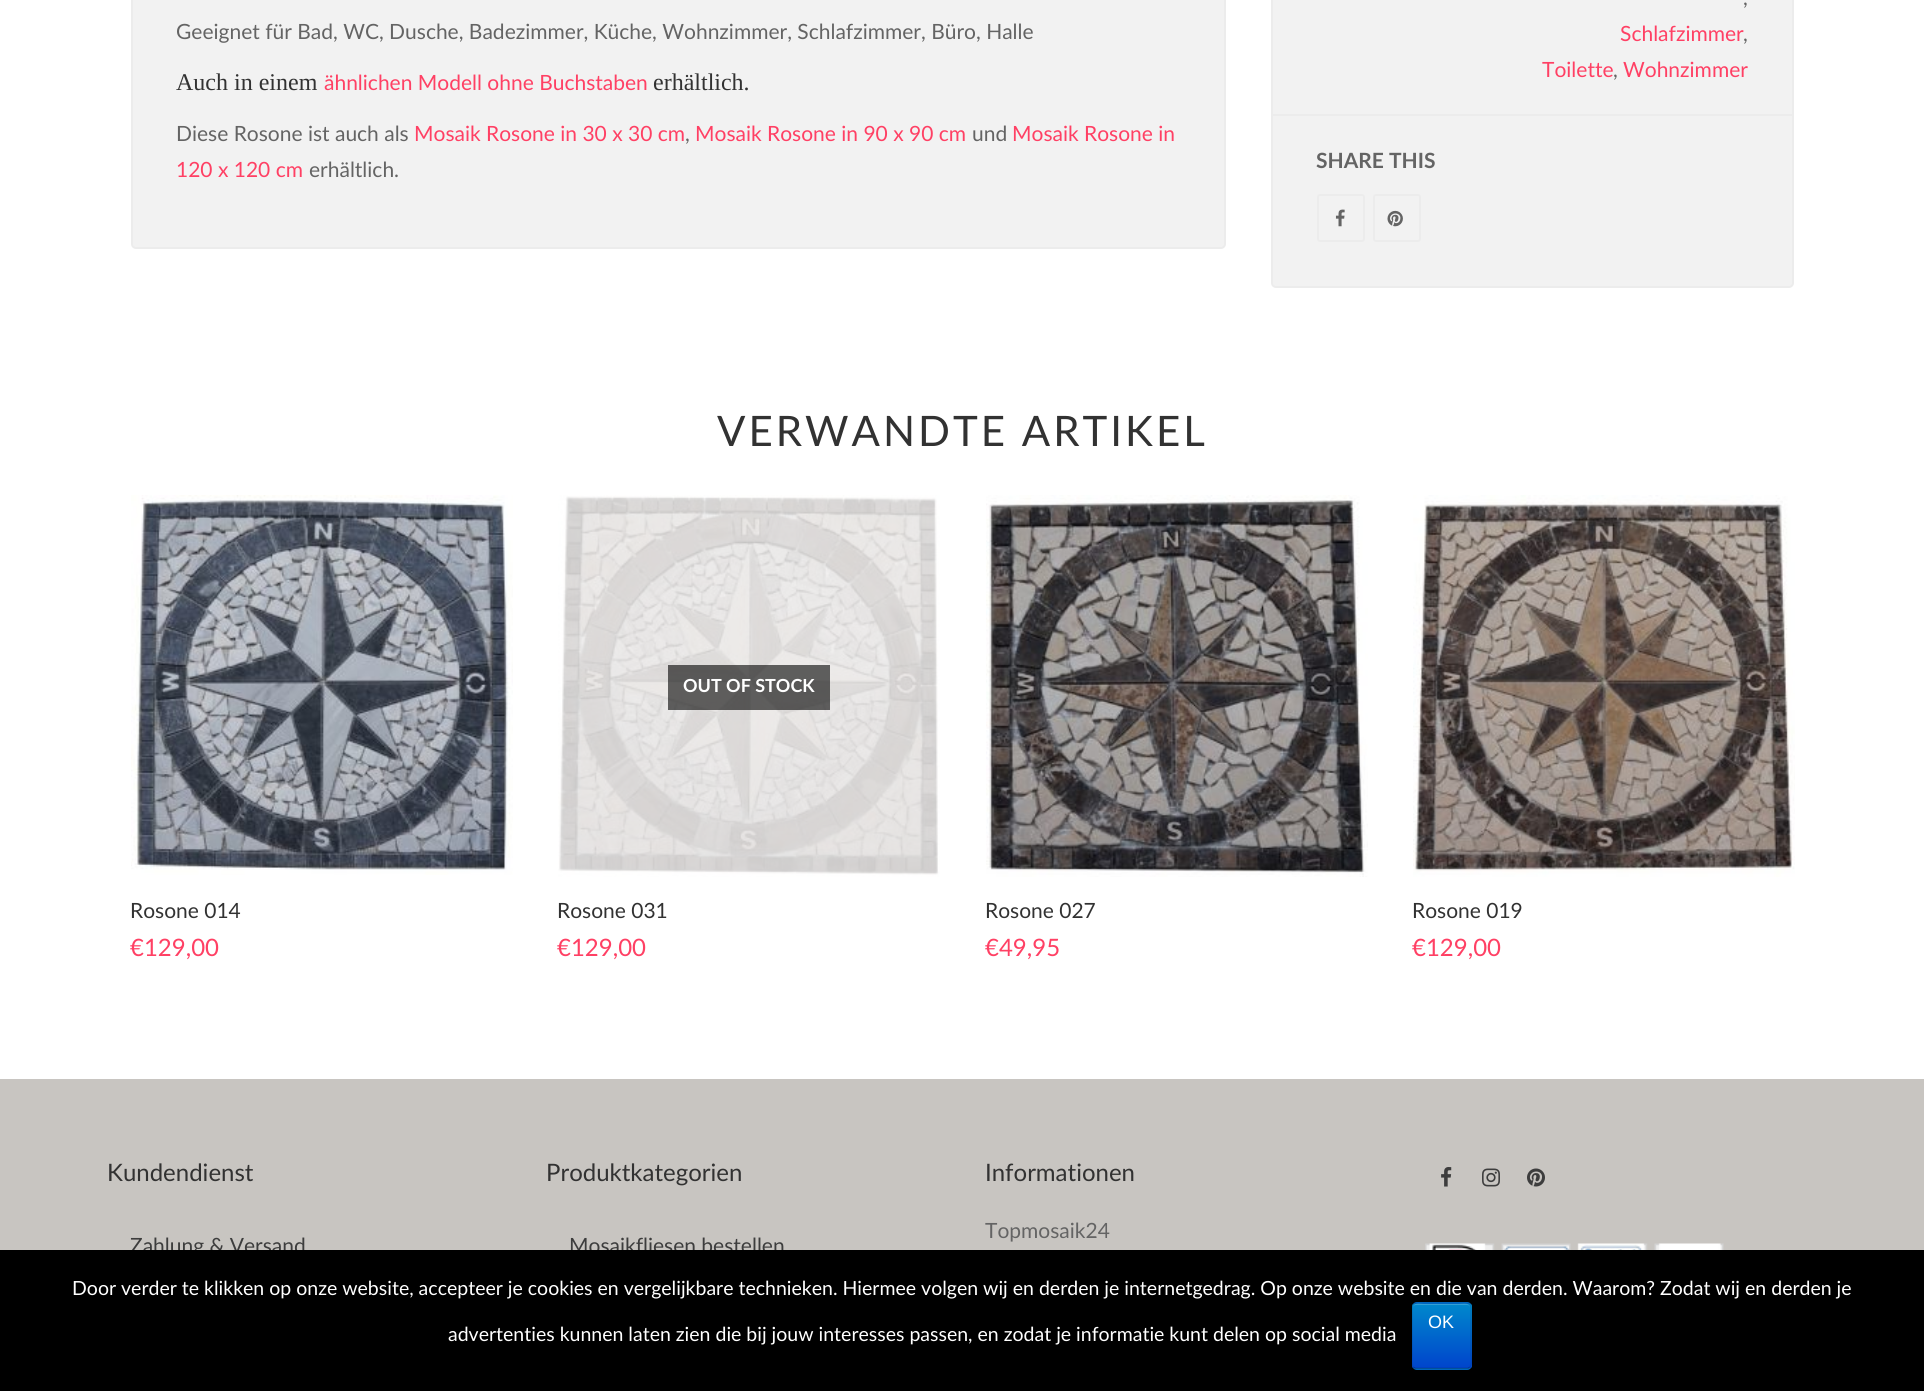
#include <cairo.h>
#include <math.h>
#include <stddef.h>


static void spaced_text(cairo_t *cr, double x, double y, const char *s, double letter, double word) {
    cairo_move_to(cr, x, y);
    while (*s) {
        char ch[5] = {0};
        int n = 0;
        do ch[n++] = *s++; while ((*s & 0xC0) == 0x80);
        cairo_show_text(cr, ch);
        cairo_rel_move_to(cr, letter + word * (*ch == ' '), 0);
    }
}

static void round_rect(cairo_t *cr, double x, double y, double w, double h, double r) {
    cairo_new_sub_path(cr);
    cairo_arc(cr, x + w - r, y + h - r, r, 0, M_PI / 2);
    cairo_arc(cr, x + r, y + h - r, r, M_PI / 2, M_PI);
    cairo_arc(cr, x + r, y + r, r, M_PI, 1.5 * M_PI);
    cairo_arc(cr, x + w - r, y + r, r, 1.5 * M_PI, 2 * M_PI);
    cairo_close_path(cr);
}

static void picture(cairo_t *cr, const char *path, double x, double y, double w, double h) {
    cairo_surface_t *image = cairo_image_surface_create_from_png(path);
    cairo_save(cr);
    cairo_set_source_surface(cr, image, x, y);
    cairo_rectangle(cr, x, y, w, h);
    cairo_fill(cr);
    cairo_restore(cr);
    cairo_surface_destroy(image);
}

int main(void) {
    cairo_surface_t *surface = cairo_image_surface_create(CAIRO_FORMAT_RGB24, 1924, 1391);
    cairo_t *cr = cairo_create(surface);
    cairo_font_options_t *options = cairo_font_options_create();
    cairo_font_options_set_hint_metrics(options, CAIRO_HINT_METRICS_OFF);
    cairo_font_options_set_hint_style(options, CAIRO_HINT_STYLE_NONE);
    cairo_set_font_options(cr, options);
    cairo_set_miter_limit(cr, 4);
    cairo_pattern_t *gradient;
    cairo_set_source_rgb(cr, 1, 1, 1);
    cairo_paint(cr);
    cairo_set_source_rgb(cr, 0.949, 0.949, 0.949);
    round_rect(cr, 132, -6, 1093, 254, 4);
    cairo_fill_preserve(cr);
    cairo_set_source_rgb(cr, 0.922, 0.922, 0.922);
    cairo_stroke(cr);
    cairo_select_font_face(cr, "Lato", CAIRO_FONT_SLANT_NORMAL, CAIRO_FONT_WEIGHT_NORMAL);
    cairo_set_font_size(cr, 21);
    cairo_set_source_rgb(cr, 0.392, 0.392, 0.392);
    cairo_move_to(cr, 176, 39);
    cairo_show_text(cr, "Geeignet für Bad, WC, Dusche, Badezimmer, Küche, Wohnzimmer, Schlafzimmer, Büro, Halle");
    cairo_select_font_face(cr, "Liberation Serif", CAIRO_FONT_SLANT_NORMAL, CAIRO_FONT_WEIGHT_NORMAL);
    cairo_set_font_size(cr, 24);
    cairo_set_source_rgb(cr, 0.196, 0.196, 0.196);
    cairo_move_to(cr, 176, 90);
    cairo_show_text(cr, "Auch in einem");
    cairo_select_font_face(cr, "Lato", CAIRO_FONT_SLANT_NORMAL, CAIRO_FONT_WEIGHT_NORMAL);
    cairo_set_font_size(cr, 21);
    cairo_set_source_rgb(cr, 1, 0.251, 0.392);
    cairo_move_to(cr, 324, 90);
    cairo_show_text(cr, "ähnlichen Modell ohne Buchstaben");
    cairo_select_font_face(cr, "Liberation Serif", CAIRO_FONT_SLANT_NORMAL, CAIRO_FONT_WEIGHT_NORMAL);
    cairo_set_font_size(cr, 24);
    cairo_set_source_rgb(cr, 0.196, 0.196, 0.196);
    cairo_move_to(cr, 653, 90);
    cairo_show_text(cr, "erhältlich.");
    cairo_select_font_face(cr, "Lato", CAIRO_FONT_SLANT_NORMAL, CAIRO_FONT_WEIGHT_NORMAL);
    cairo_set_font_size(cr, 21);
    cairo_set_source_rgb(cr, 0.392, 0.392, 0.392);
    cairo_move_to(cr, 176, 141);
    cairo_show_text(cr, "Diese Rosone ist auch als");
    cairo_set_source_rgb(cr, 1, 0.251, 0.392);
    cairo_move_to(cr, 414, 141);
    cairo_show_text(cr, "Mosaik Rosone in 30 x 30 cm");
    cairo_set_source_rgb(cr, 0.392, 0.392, 0.392);
    cairo_move_to(cr, 685, 141);
    cairo_show_text(cr, ",");
    cairo_set_source_rgb(cr, 1, 0.251, 0.392);
    cairo_move_to(cr, 695, 141);
    cairo_show_text(cr, "Mosaik Rosone in 90 x 90 cm");
    cairo_set_source_rgb(cr, 0.392, 0.392, 0.392);
    cairo_move_to(cr, 972, 141);
    cairo_show_text(cr, "und");
    cairo_set_source_rgb(cr, 1, 0.251, 0.392);
    cairo_move_to(cr, 1012, 141);
    cairo_show_text(cr, "Mosaik Rosone in");
    cairo_move_to(cr, 176, 177);
    cairo_show_text(cr, "120 x 120 cm");
    cairo_set_source_rgb(cr, 0.392, 0.392, 0.392);
    cairo_move_to(cr, 309, 177);
    cairo_show_text(cr, "erhältlich.");
    cairo_set_source_rgb(cr, 0.949, 0.949, 0.949);
    round_rect(cr, 1272, -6, 521, 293, 4);
    cairo_fill_preserve(cr);
    cairo_set_source_rgb(cr, 0.922, 0.922, 0.922);
    cairo_stroke(cr);
    cairo_rectangle(cr, 1272, 114, 521, 2);
    cairo_fill(cr);
    cairo_set_source_rgb(cr, 0.392, 0.392, 0.392);
    cairo_move_to(cr, 1743, 5);
    cairo_show_text(cr, ",");
    cairo_set_source_rgb(cr, 1, 0.251, 0.392);
    cairo_move_to(cr, 1620, 41);
    cairo_show_text(cr, "Schlafzimmer");
    cairo_set_source_rgb(cr, 0.392, 0.392, 0.392);
    cairo_move_to(cr, 1743, 41);
    cairo_show_text(cr, ",");
    cairo_set_source_rgb(cr, 1, 0.251, 0.392);
    cairo_move_to(cr, 1542, 77);
    cairo_show_text(cr, "Toilette");
    cairo_set_source_rgb(cr, 0.392, 0.392, 0.392);
    cairo_move_to(cr, 1613, 77);
    cairo_show_text(cr, ",");
    cairo_set_source_rgb(cr, 1, 0.251, 0.392);
    cairo_move_to(cr, 1623, 77);
    cairo_show_text(cr, "Wohnzimmer");
    cairo_select_font_face(cr, "Lato", CAIRO_FONT_SLANT_NORMAL, CAIRO_FONT_WEIGHT_BOLD);
    cairo_set_source_rgb(cr, 0.392, 0.392, 0.392);
    cairo_move_to(cr, 1316, 168);
    cairo_show_text(cr, "SHARE THIS");
    round_rect(cr, 1318, 195, 46, 46, 2);
    cairo_set_source_rgb(cr, 0.922, 0.922, 0.922);
    cairo_stroke(cr);
    picture(cr, "img1.png", 1335, 209, 10, 18);
    round_rect(cr, 1374, 195, 46, 46, 2);
    cairo_stroke(cr);
    picture(cr, "img2.png", 1387, 210, 16, 17);
    cairo_select_font_face(cr, "Lato", CAIRO_FONT_SLANT_NORMAL, CAIRO_FONT_WEIGHT_NORMAL);
    cairo_set_font_size(cr, 42);
    cairo_set_source_rgb(cr, 0.196, 0.196, 0.196);
    spaced_text(cr, 717, 446, "VERWANDTE ARTIKEL", 3, 0);
    picture(cr, "img3.png", 131, 495, 382, 380);
    cairo_set_font_size(cr, 21);
    cairo_move_to(cr, 130, 918);
    cairo_show_text(cr, "Rosone 014");
    cairo_set_font_size(cr, 24);
    cairo_set_source_rgb(cr, 1, 0.251, 0.392);
    cairo_move_to(cr, 130, 956);
    cairo_show_text(cr, "€129,00");
    picture(cr, "img4.png", 558, 495, 382, 382);
    cairo_set_source_rgba(cr, 0, 0, 0, 0.6);
    cairo_rectangle(cr, 668, 665, 162, 45);
    cairo_fill(cr);
    cairo_select_font_face(cr, "Lato", CAIRO_FONT_SLANT_NORMAL, CAIRO_FONT_WEIGHT_BOLD);
    cairo_set_font_size(cr, 18);
    cairo_set_source_rgb(cr, 1, 1, 1);
    cairo_move_to(cr, 683, 692);
    cairo_show_text(cr, "OUT OF STOCK");
    cairo_select_font_face(cr, "Lato", CAIRO_FONT_SLANT_NORMAL, CAIRO_FONT_WEIGHT_NORMAL);
    cairo_set_font_size(cr, 21);
    cairo_set_source_rgb(cr, 0.196, 0.196, 0.196);
    cairo_move_to(cr, 557, 918);
    cairo_show_text(cr, "Rosone 031");
    cairo_set_font_size(cr, 24);
    cairo_set_source_rgb(cr, 1, 0.251, 0.392);
    cairo_move_to(cr, 557, 956);
    cairo_show_text(cr, "€129,00");
    picture(cr, "img5.png", 986, 495, 382, 382);
    cairo_set_font_size(cr, 21);
    cairo_set_source_rgb(cr, 0.196, 0.196, 0.196);
    cairo_move_to(cr, 985, 918);
    cairo_show_text(cr, "Rosone 027");
    cairo_set_font_size(cr, 24);
    cairo_set_source_rgb(cr, 1, 0.251, 0.392);
    cairo_move_to(cr, 985, 956);
    cairo_show_text(cr, "€49,95");
    picture(cr, "img6.png", 1413, 495, 382, 382);
    cairo_set_font_size(cr, 21);
    cairo_set_source_rgb(cr, 0.196, 0.196, 0.196);
    cairo_move_to(cr, 1412, 918);
    cairo_show_text(cr, "Rosone 019");
    cairo_set_font_size(cr, 24);
    cairo_set_source_rgb(cr, 1, 0.251, 0.392);
    cairo_move_to(cr, 1412, 956);
    cairo_show_text(cr, "€129,00");
    cairo_set_source_rgb(cr, 0.784, 0.773, 0.757);
    cairo_rectangle(cr, 0, 1079, 1924, 171);
    cairo_fill(cr);
    cairo_set_source_rgb(cr, 0.196, 0.196, 0.196);
    cairo_move_to(cr, 107, 1181);
    cairo_show_text(cr, "Kundendienst");
    cairo_set_font_size(cr, 21);
    cairo_set_source_rgb(cr, 0.239, 0.239, 0.239);
    cairo_move_to(cr, 130, 1253);
    cairo_show_text(cr, "Zahlung & Versand");
    cairo_set_font_size(cr, 24);
    cairo_set_source_rgb(cr, 0.196, 0.196, 0.196);
    cairo_move_to(cr, 546, 1181);
    cairo_show_text(cr, "Produktkategorien");
    cairo_set_font_size(cr, 21);
    cairo_set_source_rgb(cr, 0.239, 0.239, 0.239);
    cairo_move_to(cr, 569, 1253);
    cairo_show_text(cr, "Mosaikfliesen bestellen");
    cairo_set_font_size(cr, 24);
    cairo_set_source_rgb(cr, 0.196, 0.196, 0.196);
    cairo_move_to(cr, 985, 1181);
    cairo_show_text(cr, "Informationen");
    cairo_set_font_size(cr, 21);
    cairo_set_source_rgb(cr, 0.392, 0.392, 0.392);
    cairo_move_to(cr, 985, 1238);
    cairo_show_text(cr, "Topmosaik24");
    picture(cr, "img7.png", 1441, 1167, 11, 20);
    picture(cr, "img8.png", 1482, 1168, 18, 19);
    picture(cr, "img9.png", 1527, 1168, 18, 19);
    picture(cr, "img10.png", 1425, 1243, 299, 7);
    cairo_set_source_rgb(cr, 0, 0, 0);
    cairo_rectangle(cr, 0, 1250, 1924, 141);
    cairo_fill(cr);
    cairo_set_font_size(cr, 19.5);
    cairo_set_source_rgb(cr, 1, 1, 1);
    cairo_move_to(cr, 72, 1295);
    cairo_show_text(cr, "Door verder te klikken op onze website, accepteer je cookies en vergelijkbare technieken. Hiermee volgen wij en derden je internetgedrag. Op onze website en die van derden. Waarom? Zodat wij en derden je");
    cairo_set_source_rgb(cr, 0, 0.427, 0.8);
    round_rect(cr, 1412, 1302, 60, 68, 5);
    cairo_fill(cr);
    cairo_save(cr);
    round_rect(cr, 1412, 1302, 60, 68, 5);
    cairo_clip(cr);
    gradient = cairo_pattern_create_linear(1442, 1304, 1442, 1368);
    cairo_pattern_add_color_stop_rgba(gradient, 0, 0, 0.533, 0.8, 1);
    cairo_pattern_add_color_stop_rgba(gradient, 1, 0, 0.267, 0.8, 1);
    cairo_set_source(cr, gradient);
    cairo_pattern_destroy(gradient);
    cairo_rectangle(cr, 1412, 1304, 60, 64);
    cairo_fill(cr);
    cairo_restore(cr);
    cairo_set_source_rgb(cr, 0.2, 0.624, 0.839);
    cairo_new_path(cr);
    cairo_move_to(cr, 1416, 1305);
    cairo_line_to(cr, 1467, 1305);
    cairo_curve_to(cr, 1469, 1305, 1470, 1306, 1470, 1308);
    cairo_curve_to(cr, 1470, 1302, 1463, 1304, 1458, 1304);
    cairo_line_to(cr, 1424, 1304);
    cairo_curve_to(cr, 1420, 1304, 1413, 1302, 1413, 1308);
    cairo_curve_to(cr, 1413, 1306, 1414, 1305, 1416, 1305);
    cairo_close_path(cr);
    cairo_fill(cr);
    cairo_new_path(cr);
    cairo_move_to(cr, 1469.5, 1367.5);
    cairo_line_to(cr, 1467.5, 1368.5);
    cairo_line_to(cr, 1415.5, 1368.5);
    cairo_line_to(cr, 1413.5, 1367.5);
    cairo_set_source_rgba(cr, 0, 0, 0, 0.25);
    cairo_set_line_width(cr, 1.5);
    cairo_stroke(cr);
    cairo_new_path(cr);
    cairo_move_to(cr, 1413.5, 1367.5);
    cairo_curve_to(cr, 1410.5, 1365, 1412, 1356, 1412, 1355);
    cairo_line_to(cr, 1412, 1316);
    cairo_curve_to(cr, 1412, 1302, 1410.5, 1303, 1424.5, 1303);
    cairo_line_to(cr, 1458.5, 1303);
    cairo_curve_to(cr, 1472.5, 1303, 1471, 1302, 1471, 1316);
    cairo_line_to(cr, 1471, 1355);
    cairo_curve_to(cr, 1471, 1356, 1472.5, 1365, 1469.5, 1367.5);
    cairo_set_source_rgba(cr, 0, 0, 0, 0.1);
    cairo_stroke(cr);
    cairo_select_font_face(cr, "Liberation Sans", CAIRO_FONT_SLANT_NORMAL, CAIRO_FONT_WEIGHT_NORMAL);
    cairo_set_font_size(cr, 18);
    cairo_set_source_rgb(cr, 1, 1, 1);
    cairo_move_to(cr, 1428, 1328);
    cairo_show_text(cr, "OK");
    cairo_select_font_face(cr, "Lato", CAIRO_FONT_SLANT_NORMAL, CAIRO_FONT_WEIGHT_NORMAL);
    cairo_set_font_size(cr, 19.5);
    cairo_move_to(cr, 448, 1341);
    cairo_show_text(cr, "advertenties kunnen laten zien die bij jouw interesses passen, en zodat je informatie kunt delen op social media");
    cairo_surface_write_to_png(surface, "page.png");
    cairo_font_options_destroy(options);
    cairo_destroy(cr);
    cairo_surface_destroy(surface);
    return 0;
}
